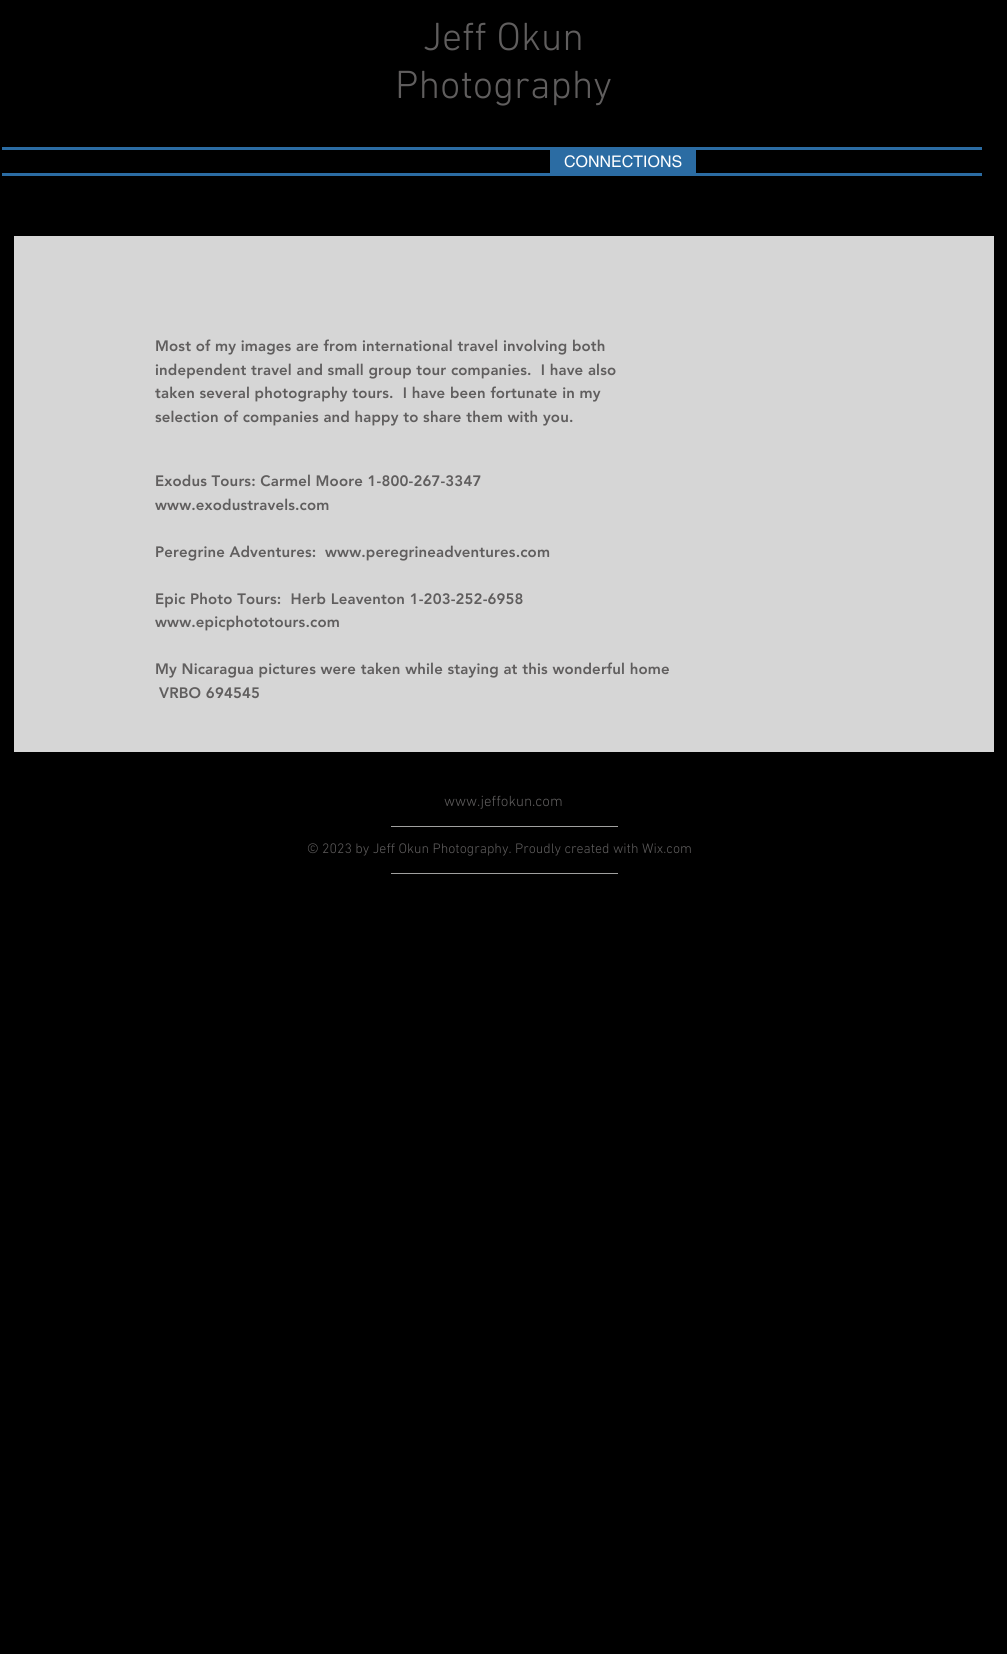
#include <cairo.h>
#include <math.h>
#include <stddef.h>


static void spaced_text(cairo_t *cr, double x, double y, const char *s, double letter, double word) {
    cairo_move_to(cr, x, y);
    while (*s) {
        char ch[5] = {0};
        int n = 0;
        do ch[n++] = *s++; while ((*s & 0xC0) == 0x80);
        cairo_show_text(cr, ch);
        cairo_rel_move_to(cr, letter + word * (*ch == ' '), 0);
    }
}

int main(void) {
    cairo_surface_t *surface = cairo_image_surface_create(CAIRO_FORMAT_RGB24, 1007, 1654);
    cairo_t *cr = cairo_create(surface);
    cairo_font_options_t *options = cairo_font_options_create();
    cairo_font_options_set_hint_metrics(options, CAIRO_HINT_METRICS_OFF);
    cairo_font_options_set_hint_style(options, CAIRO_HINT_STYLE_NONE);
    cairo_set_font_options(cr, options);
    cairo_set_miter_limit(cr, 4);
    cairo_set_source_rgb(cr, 0, 0, 0);
    cairo_paint(cr);
    cairo_select_font_face(cr, "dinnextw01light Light", CAIRO_FONT_SLANT_NORMAL, CAIRO_FONT_WEIGHT_NORMAL);
    cairo_set_font_size(cr, 40);
    cairo_set_source_rgb(cr, 0.376, 0.369, 0.369);
    cairo_move_to(cr, 423, 50);
    cairo_show_text(cr, "Jeff Okun");
    cairo_move_to(cr, 395, 98);
    cairo_show_text(cr, "Photography");
    cairo_set_source_rgb(cr, 0.169, 0.424, 0.639);
    cairo_rectangle(cr, 2, 147, 980, 3);
    cairo_fill(cr);
    cairo_rectangle(cr, 2, 173, 980, 3);
    cairo_fill(cr);
    cairo_rectangle(cr, 550, 150, 146, 23);
    cairo_fill(cr);
    cairo_select_font_face(cr, "helvetica", CAIRO_FONT_SLANT_NORMAL, CAIRO_FONT_WEIGHT_NORMAL);
    cairo_set_font_size(cr, 16);
    cairo_set_source_rgb(cr, 1, 1, 1);
    cairo_move_to(cr, 564, 167);
    cairo_show_text(cr, "CONNECTIONS");
    cairo_set_source_rgb(cr, 0.839, 0.839, 0.839);
    cairo_rectangle(cr, 14, 236, 980, 516);
    cairo_fill(cr);
    cairo_select_font_face(cr, "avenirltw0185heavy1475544 Black", CAIRO_FONT_SLANT_NORMAL, CAIRO_FONT_WEIGHT_NORMAL);
    cairo_set_font_size(cr, 15);
    cairo_set_source_rgb(cr, 0.376, 0.369, 0.369);
    spaced_text(cr, 155, 351, "Most of my images are from international travel involving both", 0.15, 0);
    spaced_text(cr, 155, 375, "independent travel and small group tour companies.  I have also", 0.15, 0);
    spaced_text(cr, 155, 398, "taken several photography tours.  I have been fortunate in my", 0.15, 0);
    spaced_text(cr, 155, 422, "selection of companies and happy to share them with you.", 0.15, 0);
    spaced_text(cr, 155, 486, "Exodus Tours: Carmel Moore 1-800-267-3347", 0.15, 0);
    spaced_text(cr, 155, 510, "www.exodustravels.com", 0.15, 0);
    spaced_text(cr, 155, 557, "Peregrine Adventures:", 0.15, 0);
    spaced_text(cr, 325, 557, "www.peregrineadventures.com", 0.15, 0);
    spaced_text(cr, 155, 604, "Epic Photo Tours:  Herb Leaventon 1-203-252-6958", 0.15, 0);
    spaced_text(cr, 155, 627, "www.epicphototours.com", 0.15, 0);
    spaced_text(cr, 155, 674, "My Nicaragua pictures were taken while staying at this wonderful home", 0.15, 0);
    spaced_text(cr, 159, 698, "VRBO 694545", 0.15, 0);
    cairo_select_font_face(cr, "dinnextw01light Light", CAIRO_FONT_SLANT_NORMAL, CAIRO_FONT_WEIGHT_NORMAL);
    cairo_move_to(cr, 444, 806);
    cairo_show_text(cr, "www.jeffokun.com");
    cairo_set_source_rgb(cr, 0.627, 0.627, 0.624);
    cairo_rectangle(cr, 391, 826, 227, 1);
    cairo_fill(cr);
    cairo_set_font_size(cr, 14);
    cairo_set_source_rgb(cr, 0.376, 0.369, 0.369);
    cairo_move_to(cr, 307, 853);
    cairo_show_text(cr, "© 2023 by Jeff Okun Photography. Proudly created with Wix.com");
    cairo_set_source_rgb(cr, 0.627, 0.627, 0.624);
    cairo_rectangle(cr, 391, 873, 227, 1);
    cairo_fill(cr);
    cairo_surface_write_to_png(surface, "page.png");
    cairo_font_options_destroy(options);
    cairo_destroy(cr);
    cairo_surface_destroy(surface);
    return 0;
}
